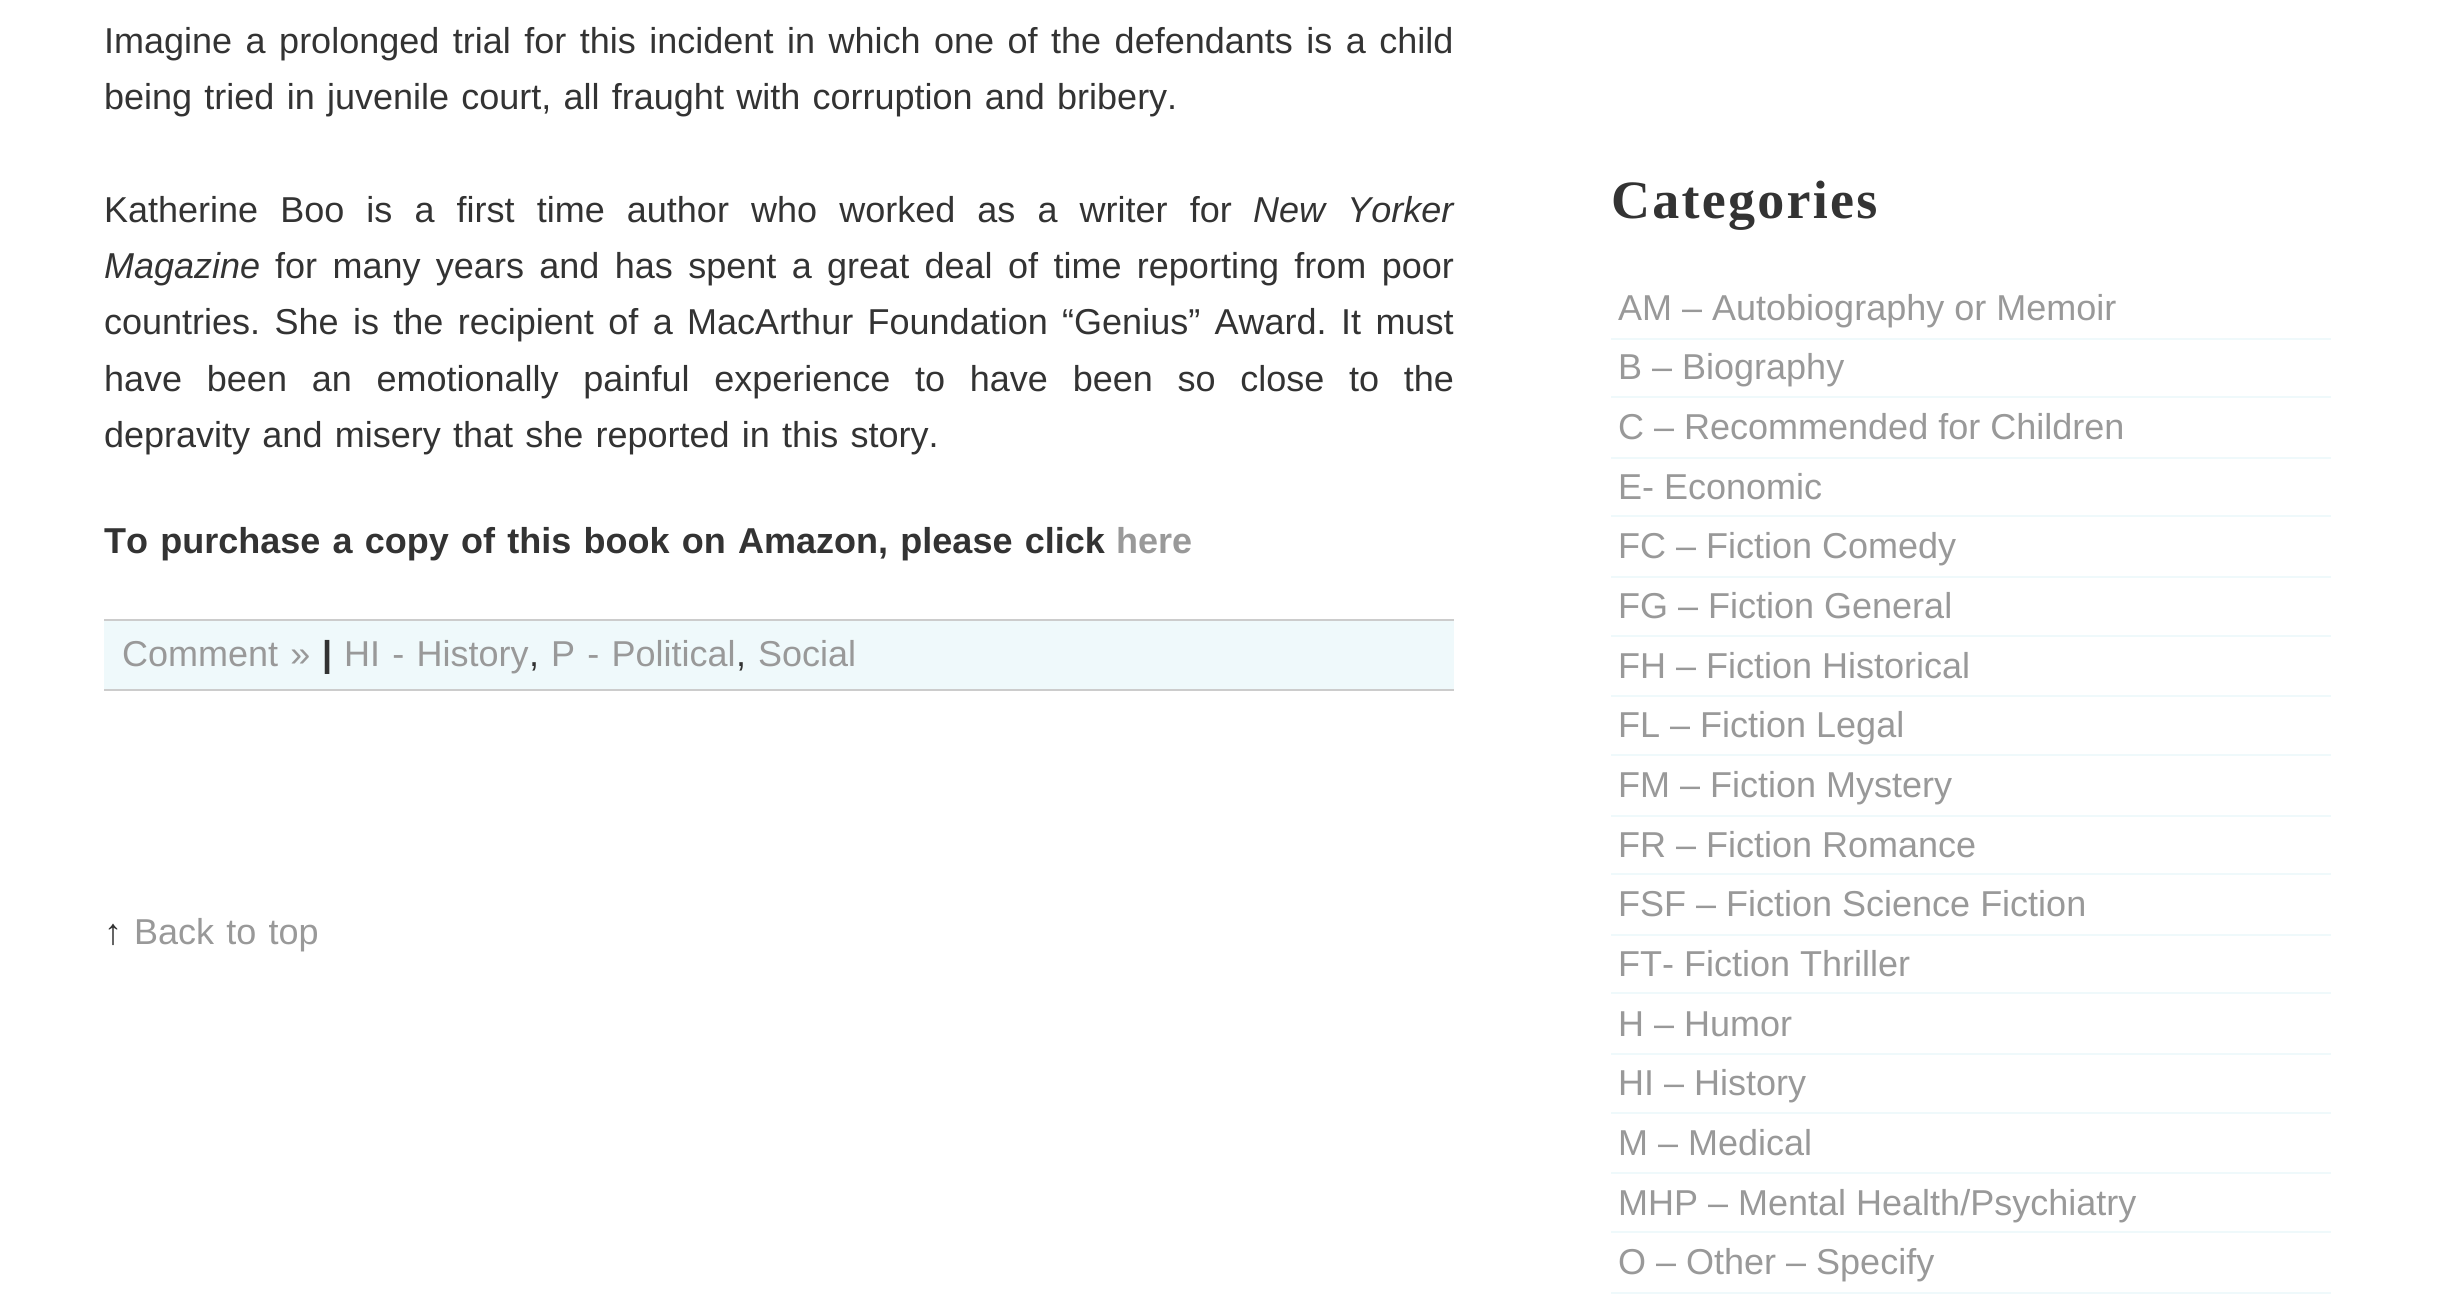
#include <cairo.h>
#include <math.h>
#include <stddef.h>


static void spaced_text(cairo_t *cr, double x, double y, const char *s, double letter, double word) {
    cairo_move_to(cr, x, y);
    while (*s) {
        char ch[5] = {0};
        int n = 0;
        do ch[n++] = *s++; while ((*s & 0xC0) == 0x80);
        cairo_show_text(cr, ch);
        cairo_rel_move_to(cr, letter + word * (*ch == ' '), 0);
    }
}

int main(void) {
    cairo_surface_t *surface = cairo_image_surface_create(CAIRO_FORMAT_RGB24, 2457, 1314);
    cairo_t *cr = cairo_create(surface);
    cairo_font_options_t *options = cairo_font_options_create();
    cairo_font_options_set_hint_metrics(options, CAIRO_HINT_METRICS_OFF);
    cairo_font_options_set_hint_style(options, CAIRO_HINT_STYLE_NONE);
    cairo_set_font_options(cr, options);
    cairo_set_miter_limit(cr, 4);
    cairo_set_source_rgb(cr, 1, 1, 1);
    cairo_paint(cr);
    cairo_select_font_face(cr, "Liberation Sans", CAIRO_FONT_SLANT_NORMAL, CAIRO_FONT_WEIGHT_NORMAL);
    cairo_set_font_size(cr, 36);
    cairo_set_source_rgb(cr, 0.2, 0.2, 0.2);
    spaced_text(cr, 104, 53, "Imagine a prolonged trial for this incident in which one of the defendants is a child", 0, 3.5);
    spaced_text(cr, 104, 109, "being tried in juvenile court, all fraught with corruption and bribery.", 0, 2.25);
    spaced_text(cr, 104, 222, "Katherine Boo is a first time author who worked as a writer for", 0, 12.1);
    cairo_select_font_face(cr, "Liberation Sans", CAIRO_FONT_SLANT_ITALIC, CAIRO_FONT_WEIGHT_NORMAL);
    spaced_text(cr, 1253, 222, "New Yorker", 0, 12.1);
    cairo_move_to(cr, 104, 278);
    cairo_show_text(cr, "Magazine");
    cairo_select_font_face(cr, "Liberation Sans", CAIRO_FONT_SLANT_NORMAL, CAIRO_FONT_WEIGHT_NORMAL);
    spaced_text(cr, 275, 278, "for many years and has spent a great deal of time reporting from poor", 0, 5.4);
    spaced_text(cr, 104, 334, "countries. She is the recipient of a MacArthur Foundation “Genius” Award. It must", 0, 4.4);
    spaced_text(cr, 104, 391, "have been an emotionally painful experience to have been so close to the", 0, 14.75);
    spaced_text(cr, 104, 447, "depravity and misery that she reported in this story.", 0, 2.25);
    cairo_select_font_face(cr, "Liberation Sans", CAIRO_FONT_SLANT_NORMAL, CAIRO_FONT_WEIGHT_BOLD);
    spaced_text(cr, 104, 553, "To purchase a copy of this book on Amazon, please click", 0, 2.25);
    cairo_set_source_rgb(cr, 0.6, 0.6, 0.6);
    cairo_move_to(cr, 1116, 553);
    cairo_show_text(cr, "here");
    cairo_set_source_rgb(cr, 0.937, 0.973, 0.984);
    cairo_rectangle(cr, 104, 621, 1350, 68);
    cairo_fill(cr);
    cairo_set_source_rgb(cr, 0.8, 0.8, 0.8);
    cairo_rectangle(cr, 104, 619, 1350, 2);
    cairo_fill(cr);
    cairo_rectangle(cr, 104, 689, 1350, 2);
    cairo_fill(cr);
    cairo_select_font_face(cr, "Liberation Sans", CAIRO_FONT_SLANT_NORMAL, CAIRO_FONT_WEIGHT_NORMAL);
    cairo_set_source_rgb(cr, 0.6, 0.6, 0.6);
    spaced_text(cr, 122, 666, "Comment »", 0, 2.25);
    cairo_select_font_face(cr, "Liberation Sans", CAIRO_FONT_SLANT_NORMAL, CAIRO_FONT_WEIGHT_BOLD);
    cairo_set_source_rgb(cr, 0.2, 0.2, 0.2);
    cairo_move_to(cr, 322, 666);
    cairo_show_text(cr, "|");
    cairo_select_font_face(cr, "Liberation Sans", CAIRO_FONT_SLANT_NORMAL, CAIRO_FONT_WEIGHT_NORMAL);
    cairo_set_source_rgb(cr, 0.6, 0.6, 0.6);
    spaced_text(cr, 344, 666, "HI - History", 0, 2.25);
    cairo_set_source_rgb(cr, 0.2, 0.2, 0.2);
    cairo_move_to(cr, 529, 666);
    cairo_show_text(cr, ",");
    cairo_set_source_rgb(cr, 0.6, 0.6, 0.6);
    spaced_text(cr, 551, 666, "P - Political", 0, 2.25);
    cairo_set_source_rgb(cr, 0.2, 0.2, 0.2);
    cairo_move_to(cr, 736, 666);
    cairo_show_text(cr, ",");
    cairo_set_source_rgb(cr, 0.6, 0.6, 0.6);
    cairo_move_to(cr, 758, 666);
    cairo_show_text(cr, "Social");
    cairo_set_source_rgb(cr, 0.2, 0.2, 0.2);
    cairo_move_to(cr, 104, 944);
    cairo_show_text(cr, "↑");
    cairo_set_source_rgb(cr, 0.6, 0.6, 0.6);
    spaced_text(cr, 134, 944, "Back to top", 0, 2.25);
    cairo_select_font_face(cr, "Liberation Serif", CAIRO_FONT_SLANT_NORMAL, CAIRO_FONT_WEIGHT_BOLD);
    cairo_set_font_size(cr, 54);
    cairo_set_source_rgb(cr, 0.2, 0.2, 0.2);
    spaced_text(cr, 1611, 218, "Categories", 2.25, 0);
    cairo_set_source_rgb(cr, 0.937, 0.973, 0.984);
    cairo_rectangle(cr, 1611, 338, 720, 2);
    cairo_fill(cr);
    cairo_select_font_face(cr, "Liberation Sans", CAIRO_FONT_SLANT_NORMAL, CAIRO_FONT_WEIGHT_NORMAL);
    cairo_set_font_size(cr, 36);
    cairo_set_source_rgb(cr, 0.6, 0.6, 0.6);
    cairo_move_to(cr, 1618, 320);
    cairo_show_text(cr, "AM – Autobiography or Memoir");
    cairo_set_source_rgb(cr, 0.937, 0.973, 0.984);
    cairo_rectangle(cr, 1611, 396, 720, 2);
    cairo_fill(cr);
    cairo_set_source_rgb(cr, 0.6, 0.6, 0.6);
    cairo_move_to(cr, 1618, 379);
    cairo_show_text(cr, "B – Biography");
    cairo_set_source_rgb(cr, 0.937, 0.973, 0.984);
    cairo_rectangle(cr, 1611, 457, 720, 2);
    cairo_fill(cr);
    cairo_set_source_rgb(cr, 0.6, 0.6, 0.6);
    cairo_move_to(cr, 1618, 439);
    cairo_show_text(cr, "C – Recommended for Children");
    cairo_set_source_rgb(cr, 0.937, 0.973, 0.984);
    cairo_rectangle(cr, 1611, 515, 720, 2);
    cairo_fill(cr);
    cairo_set_source_rgb(cr, 0.6, 0.6, 0.6);
    cairo_move_to(cr, 1618, 499);
    cairo_show_text(cr, "E- Economic");
    cairo_set_source_rgb(cr, 0.937, 0.973, 0.984);
    cairo_rectangle(cr, 1611, 576, 720, 2);
    cairo_fill(cr);
    cairo_set_source_rgb(cr, 0.6, 0.6, 0.6);
    cairo_move_to(cr, 1618, 558);
    cairo_show_text(cr, "FC – Fiction Comedy");
    cairo_set_source_rgb(cr, 0.937, 0.973, 0.984);
    cairo_rectangle(cr, 1611, 635, 720, 2);
    cairo_fill(cr);
    cairo_set_source_rgb(cr, 0.6, 0.6, 0.6);
    cairo_move_to(cr, 1618, 618);
    cairo_show_text(cr, "FG – Fiction General");
    cairo_set_source_rgb(cr, 0.937, 0.973, 0.984);
    cairo_rectangle(cr, 1611, 695, 720, 2);
    cairo_fill(cr);
    cairo_set_source_rgb(cr, 0.6, 0.6, 0.6);
    cairo_move_to(cr, 1618, 678);
    cairo_show_text(cr, "FH – Fiction Historical");
    cairo_set_source_rgb(cr, 0.937, 0.973, 0.984);
    cairo_rectangle(cr, 1611, 754, 720, 2);
    cairo_fill(cr);
    cairo_set_source_rgb(cr, 0.6, 0.6, 0.6);
    cairo_move_to(cr, 1618, 737);
    cairo_show_text(cr, "FL – Fiction Legal");
    cairo_set_source_rgb(cr, 0.937, 0.973, 0.984);
    cairo_rectangle(cr, 1611, 815, 720, 2);
    cairo_fill(cr);
    cairo_set_source_rgb(cr, 0.6, 0.6, 0.6);
    cairo_move_to(cr, 1618, 797);
    cairo_show_text(cr, "FM – Fiction Mystery");
    cairo_set_source_rgb(cr, 0.937, 0.973, 0.984);
    cairo_rectangle(cr, 1611, 873, 720, 2);
    cairo_fill(cr);
    cairo_set_source_rgb(cr, 0.6, 0.6, 0.6);
    cairo_move_to(cr, 1618, 857);
    cairo_show_text(cr, "FR – Fiction Romance");
    cairo_set_source_rgb(cr, 0.937, 0.973, 0.984);
    cairo_rectangle(cr, 1611, 934, 720, 2);
    cairo_fill(cr);
    cairo_set_source_rgb(cr, 0.6, 0.6, 0.6);
    cairo_move_to(cr, 1618, 916);
    cairo_show_text(cr, "FSF – Fiction Science Fiction");
    cairo_set_source_rgb(cr, 0.937, 0.973, 0.984);
    cairo_rectangle(cr, 1611, 992, 720, 2);
    cairo_fill(cr);
    cairo_set_source_rgb(cr, 0.6, 0.6, 0.6);
    cairo_move_to(cr, 1618, 976);
    cairo_show_text(cr, "FT- Fiction Thriller");
    cairo_set_source_rgb(cr, 0.937, 0.973, 0.984);
    cairo_rectangle(cr, 1611, 1053, 720, 2);
    cairo_fill(cr);
    cairo_set_source_rgb(cr, 0.6, 0.6, 0.6);
    cairo_move_to(cr, 1618, 1036);
    cairo_show_text(cr, "H – Humor");
    cairo_set_source_rgb(cr, 0.937, 0.973, 0.984);
    cairo_rectangle(cr, 1611, 1112, 720, 2);
    cairo_fill(cr);
    cairo_set_source_rgb(cr, 0.6, 0.6, 0.6);
    cairo_move_to(cr, 1618, 1095);
    cairo_show_text(cr, "HI – History");
    cairo_set_source_rgb(cr, 0.937, 0.973, 0.984);
    cairo_rectangle(cr, 1611, 1172, 720, 2);
    cairo_fill(cr);
    cairo_set_source_rgb(cr, 0.6, 0.6, 0.6);
    cairo_move_to(cr, 1618, 1155);
    cairo_show_text(cr, "M – Medical");
    cairo_set_source_rgb(cr, 0.937, 0.973, 0.984);
    cairo_rectangle(cr, 1611, 1231, 720, 2);
    cairo_fill(cr);
    cairo_set_source_rgb(cr, 0.6, 0.6, 0.6);
    cairo_move_to(cr, 1618, 1215);
    cairo_show_text(cr, "MHP – Mental Health/Psychiatry");
    cairo_set_source_rgb(cr, 0.937, 0.973, 0.984);
    cairo_rectangle(cr, 1611, 1292, 720, 2);
    cairo_fill(cr);
    cairo_set_source_rgb(cr, 0.6, 0.6, 0.6);
    cairo_move_to(cr, 1618, 1274);
    cairo_show_text(cr, "O – Other – Specify");
    cairo_surface_write_to_png(surface, "page.png");
    cairo_font_options_destroy(options);
    cairo_destroy(cr);
    cairo_surface_destroy(surface);
    return 0;
}
